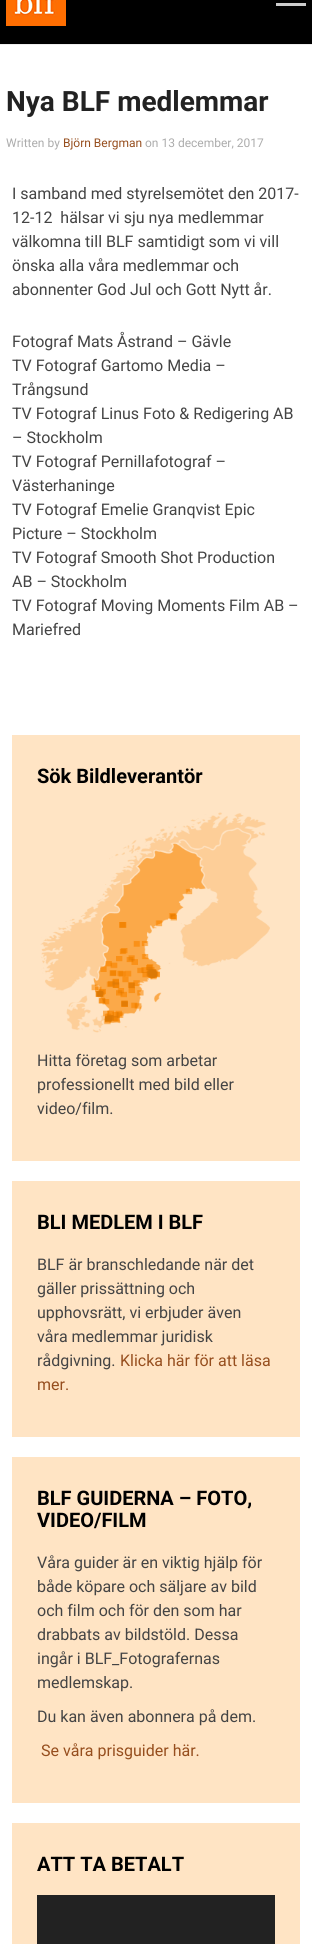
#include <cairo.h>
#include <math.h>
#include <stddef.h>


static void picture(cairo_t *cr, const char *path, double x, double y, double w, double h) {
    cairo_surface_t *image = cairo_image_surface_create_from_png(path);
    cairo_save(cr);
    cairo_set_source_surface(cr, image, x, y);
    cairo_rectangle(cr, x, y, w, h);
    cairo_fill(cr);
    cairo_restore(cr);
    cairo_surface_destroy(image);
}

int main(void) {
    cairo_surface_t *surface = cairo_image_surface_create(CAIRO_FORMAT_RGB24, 312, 1944);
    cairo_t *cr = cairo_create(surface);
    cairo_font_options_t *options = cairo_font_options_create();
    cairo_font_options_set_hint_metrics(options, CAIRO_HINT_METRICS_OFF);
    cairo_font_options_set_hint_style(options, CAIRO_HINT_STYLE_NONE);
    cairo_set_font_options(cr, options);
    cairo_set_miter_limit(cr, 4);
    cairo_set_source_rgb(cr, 1, 1, 1);
    cairo_paint(cr);
    cairo_set_source_rgb(cr, 0, 0, 0);
    cairo_rectangle(cr, 0, 0, 312, 44);
    cairo_fill(cr);
    cairo_set_source_rgb(cr, 0.933, 0.933, 0.933);
    cairo_rectangle(cr, 0, 44, 312, 1);
    cairo_fill(cr);
    picture(cr, "img1.png", 6, 0, 60, 26);
    cairo_set_source_rgb(cr, 0.8, 0.8, 0.8);
    cairo_rectangle(cr, 276, 3, 30, 3);
    cairo_fill(cr);
    cairo_select_font_face(cr, "Roboto", CAIRO_FONT_SLANT_NORMAL, CAIRO_FONT_WEIGHT_BOLD);
    cairo_set_font_size(cr, 28);
    cairo_set_source_rgb(cr, 0.133, 0.133, 0.133);
    cairo_move_to(cr, 6, 111);
    cairo_show_text(cr, "Nya BLF medlemmar");
    cairo_select_font_face(cr, "Roboto", CAIRO_FONT_SLANT_NORMAL, CAIRO_FONT_WEIGHT_NORMAL);
    cairo_set_font_size(cr, 12);
    cairo_set_source_rgb(cr, 0.675, 0.675, 0.675);
    cairo_move_to(cr, 6, 147);
    cairo_show_text(cr, "Written by");
    cairo_set_source_rgb(cr, 0.588, 0.306, 0.118);
    cairo_move_to(cr, 63, 147);
    cairo_show_text(cr, "Björn Bergman");
    cairo_set_source_rgb(cr, 0.675, 0.675, 0.675);
    cairo_move_to(cr, 145, 147);
    cairo_show_text(cr, "on 13 december, 2017");
    cairo_set_font_size(cr, 16);
    cairo_set_source_rgb(cr, 0.267, 0.267, 0.267);
    cairo_move_to(cr, 12, 199);
    cairo_show_text(cr, "I samband med styrelsemötet den 2017-");
    cairo_move_to(cr, 12, 223);
    cairo_show_text(cr, "12-12  hälsar vi sju nya medlemmar");
    cairo_move_to(cr, 12, 247);
    cairo_show_text(cr, "välkomna till BLF samtidigt som vi vill");
    cairo_move_to(cr, 12, 271);
    cairo_show_text(cr, "önska alla våra medlemmar och");
    cairo_move_to(cr, 12, 295);
    cairo_show_text(cr, "abonnenter God Jul och Gott Nytt år.");
    cairo_move_to(cr, 12, 347);
    cairo_show_text(cr, "Fotograf Mats Åstrand – Gävle");
    cairo_move_to(cr, 12, 371);
    cairo_show_text(cr, "TV Fotograf Gartomo Media –");
    cairo_move_to(cr, 12, 395);
    cairo_show_text(cr, "Trångsund");
    cairo_move_to(cr, 12, 419);
    cairo_show_text(cr, "TV Fotograf Linus Foto & Redigering AB");
    cairo_move_to(cr, 12, 443);
    cairo_show_text(cr, "– Stockholm");
    cairo_move_to(cr, 12, 467);
    cairo_show_text(cr, "TV Fotograf Pernillafotograf –");
    cairo_move_to(cr, 12, 491);
    cairo_show_text(cr, "Västerhaninge");
    cairo_move_to(cr, 12, 515);
    cairo_show_text(cr, "TV Fotograf Emelie Granqvist Epic");
    cairo_move_to(cr, 12, 539);
    cairo_show_text(cr, "Picture – Stockholm");
    cairo_move_to(cr, 12, 563);
    cairo_show_text(cr, "TV Fotograf Smooth Shot Production");
    cairo_move_to(cr, 12, 587);
    cairo_show_text(cr, "AB – Stockholm");
    cairo_move_to(cr, 12, 611);
    cairo_show_text(cr, "TV Fotograf Moving Moments Film AB –");
    cairo_move_to(cr, 12, 635);
    cairo_show_text(cr, "Mariefred");
    cairo_set_source_rgb(cr, 1, 0.894, 0.769);
    cairo_rectangle(cr, 12, 735, 288, 426);
    cairo_fill(cr);
    cairo_select_font_face(cr, "Roboto", CAIRO_FONT_SLANT_NORMAL, CAIRO_FONT_WEIGHT_BOLD);
    cairo_set_font_size(cr, 20);
    cairo_set_source_rgb(cr, 0, 0, 0);
    cairo_move_to(cr, 37, 783);
    cairo_show_text(cr, "Sök Bildleverantör");
    picture(cr, "img2.png", 40, 812, 230, 221);
    cairo_select_font_face(cr, "Roboto", CAIRO_FONT_SLANT_NORMAL, CAIRO_FONT_WEIGHT_NORMAL);
    cairo_set_font_size(cr, 16);
    cairo_set_source_rgb(cr, 0.267, 0.267, 0.267);
    cairo_move_to(cr, 37, 1066);
    cairo_show_text(cr, "Hitta företag som arbetar");
    cairo_move_to(cr, 37, 1090);
    cairo_show_text(cr, "professionellt med bild eller");
    cairo_move_to(cr, 37, 1114);
    cairo_show_text(cr, "video/film.");
    cairo_set_source_rgb(cr, 1, 0.894, 0.769);
    cairo_rectangle(cr, 12, 1181, 288, 256);
    cairo_fill(cr);
    cairo_select_font_face(cr, "Roboto", CAIRO_FONT_SLANT_NORMAL, CAIRO_FONT_WEIGHT_BOLD);
    cairo_set_font_size(cr, 20);
    cairo_set_source_rgb(cr, 0, 0, 0);
    cairo_move_to(cr, 37, 1229);
    cairo_show_text(cr, "BLI MEDLEM I BLF");
    cairo_select_font_face(cr, "Roboto", CAIRO_FONT_SLANT_NORMAL, CAIRO_FONT_WEIGHT_NORMAL);
    cairo_set_font_size(cr, 16);
    cairo_set_source_rgb(cr, 0.267, 0.267, 0.267);
    cairo_move_to(cr, 37, 1270);
    cairo_show_text(cr, "BLF är branschledande när det");
    cairo_move_to(cr, 37, 1294);
    cairo_show_text(cr, "gäller prissättning och");
    cairo_move_to(cr, 37, 1318);
    cairo_show_text(cr, "upphovsrätt, vi erbjuder även");
    cairo_move_to(cr, 37, 1342);
    cairo_show_text(cr, "våra medlemmar juridisk");
    cairo_move_to(cr, 37, 1366);
    cairo_show_text(cr, "rådgivning.");
    cairo_set_source_rgb(cr, 0.588, 0.306, 0.118);
    cairo_move_to(cr, 120, 1366);
    cairo_show_text(cr, "Klicka här för att läsa");
    cairo_move_to(cr, 37, 1390);
    cairo_show_text(cr, "mer.");
    cairo_set_source_rgb(cr, 1, 0.894, 0.769);
    cairo_rectangle(cr, 12, 1457, 288, 346);
    cairo_fill(cr);
    cairo_select_font_face(cr, "Roboto", CAIRO_FONT_SLANT_NORMAL, CAIRO_FONT_WEIGHT_BOLD);
    cairo_set_font_size(cr, 20);
    cairo_set_source_rgb(cr, 0, 0, 0);
    cairo_move_to(cr, 37, 1505);
    cairo_show_text(cr, "BLF GUIDERNA – FOTO,");
    cairo_move_to(cr, 37, 1527);
    cairo_show_text(cr, "VIDEO/FILM");
    cairo_select_font_face(cr, "Roboto", CAIRO_FONT_SLANT_NORMAL, CAIRO_FONT_WEIGHT_NORMAL);
    cairo_set_font_size(cr, 16);
    cairo_set_source_rgb(cr, 0.267, 0.267, 0.267);
    cairo_move_to(cr, 37, 1568);
    cairo_show_text(cr, "Våra guider är en viktig hjälp för");
    cairo_move_to(cr, 37, 1592);
    cairo_show_text(cr, "både köpare och säljare av bild");
    cairo_move_to(cr, 37, 1616);
    cairo_show_text(cr, "och film och för den som har");
    cairo_move_to(cr, 37, 1640);
    cairo_show_text(cr, "drabbats av bildstöld. Dessa");
    cairo_move_to(cr, 37, 1664);
    cairo_show_text(cr, "ingår i BLF_Fotografernas");
    cairo_move_to(cr, 37, 1688);
    cairo_show_text(cr, "medlemskap.");
    cairo_move_to(cr, 37, 1722);
    cairo_show_text(cr, "Du kan även abonnera på dem.");
    cairo_set_source_rgb(cr, 0.588, 0.306, 0.118);
    cairo_move_to(cr, 41, 1756);
    cairo_show_text(cr, "Se våra prisguider här.");
    cairo_set_source_rgb(cr, 1, 0.894, 0.769);
    cairo_rectangle(cr, 12, 1823, 288, 121);
    cairo_fill(cr);
    cairo_select_font_face(cr, "Roboto", CAIRO_FONT_SLANT_NORMAL, CAIRO_FONT_WEIGHT_BOLD);
    cairo_set_font_size(cr, 20);
    cairo_set_source_rgb(cr, 0, 0, 0);
    cairo_move_to(cr, 37, 1871);
    cairo_show_text(cr, "ATT TA BETALT");
    cairo_set_source_rgb(cr, 0.133, 0.133, 0.133);
    cairo_rectangle(cr, 37, 1895, 238, 49);
    cairo_fill(cr);
    cairo_surface_write_to_png(surface, "page.png");
    cairo_font_options_destroy(options);
    cairo_destroy(cr);
    cairo_surface_destroy(surface);
    return 0;
}
